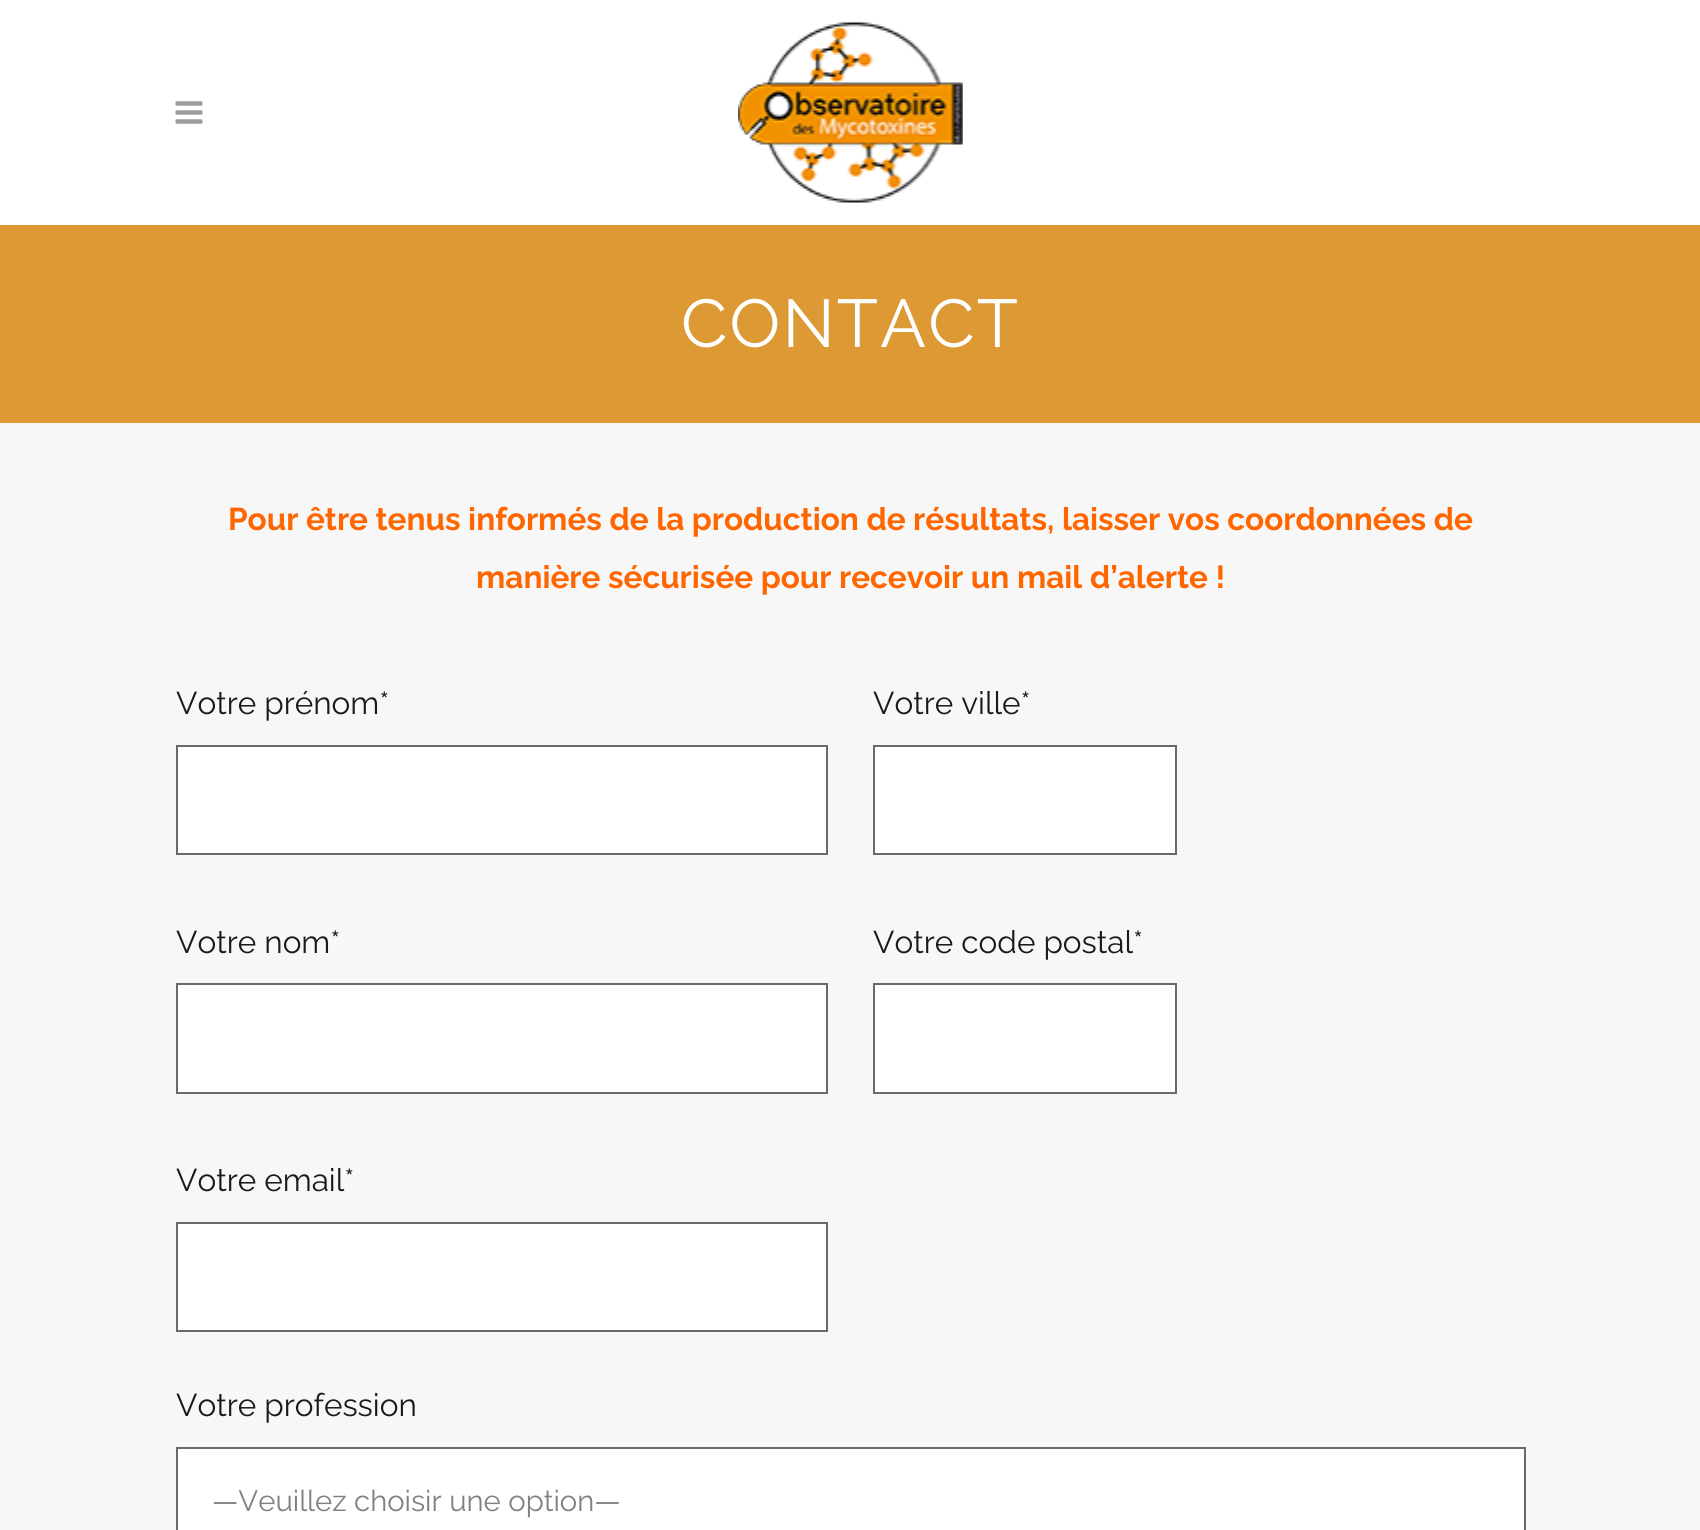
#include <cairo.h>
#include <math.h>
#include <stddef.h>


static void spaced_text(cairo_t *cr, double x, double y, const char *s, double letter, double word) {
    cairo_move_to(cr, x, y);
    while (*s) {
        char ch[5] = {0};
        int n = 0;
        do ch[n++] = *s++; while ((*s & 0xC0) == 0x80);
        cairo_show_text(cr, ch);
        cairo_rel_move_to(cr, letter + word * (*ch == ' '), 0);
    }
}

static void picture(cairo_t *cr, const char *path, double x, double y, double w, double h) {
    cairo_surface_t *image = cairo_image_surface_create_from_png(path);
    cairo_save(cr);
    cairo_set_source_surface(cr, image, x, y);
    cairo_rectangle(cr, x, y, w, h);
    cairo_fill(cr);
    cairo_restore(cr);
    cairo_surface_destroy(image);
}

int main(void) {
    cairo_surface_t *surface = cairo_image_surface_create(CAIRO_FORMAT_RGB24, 1700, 1530);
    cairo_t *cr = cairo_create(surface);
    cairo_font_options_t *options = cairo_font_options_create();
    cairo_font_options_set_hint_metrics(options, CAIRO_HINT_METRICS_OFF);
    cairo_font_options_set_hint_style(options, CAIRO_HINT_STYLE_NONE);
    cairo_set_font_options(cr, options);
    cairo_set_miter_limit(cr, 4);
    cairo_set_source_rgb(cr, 0.965, 0.965, 0.965);
    cairo_paint(cr);
    cairo_set_source_rgb(cr, 1, 1, 1);
    cairo_rectangle(cr, 0, 0, 1700, 225);
    cairo_fill(cr);
    picture(cr, "img1.png", 175, 101, 28, 23);
    picture(cr, "img2.png", 738, 22, 225, 181);
    cairo_set_source_rgb(cr, 0.867, 0.6, 0.2);
    cairo_rectangle(cr, 0, 225, 1700, 198);
    cairo_fill(cr);
    cairo_select_font_face(cr, "Raleway", CAIRO_FONT_SLANT_NORMAL, CAIRO_FONT_WEIGHT_NORMAL);
    cairo_set_font_size(cr, 67.5);
    cairo_set_source_rgb(cr, 1, 1, 1);
    spaced_text(cr, 681, 347, "CONTACT", 2.25, 0);
    cairo_select_font_face(cr, "Raleway", CAIRO_FONT_SLANT_NORMAL, CAIRO_FONT_WEIGHT_BOLD);
    cairo_set_font_size(cr, 31.5);
    cairo_set_source_rgb(cr, 1, 0.4, 0);
    cairo_move_to(cr, 228, 530);
    cairo_show_text(cr, "Pour être tenus informés de la production de résultats, laisser vos coordonnées de");
    cairo_move_to(cr, 476, 588);
    cairo_show_text(cr, "manière sécurisée pour recevoir un mail d’alerte !");
    cairo_select_font_face(cr, "Raleway", CAIRO_FONT_SLANT_NORMAL, CAIRO_FONT_WEIGHT_NORMAL);
    cairo_set_source_rgb(cr, 0.102, 0.102, 0.102);
    cairo_move_to(cr, 176, 714);
    cairo_show_text(cr, "Votre prénom*");
    cairo_set_source_rgb(cr, 1, 1, 1);
    cairo_rectangle(cr, 177, 746, 650, 108);
    cairo_fill_preserve(cr);
    cairo_set_source_rgb(cr, 0.416, 0.416, 0.416);
    cairo_stroke(cr);
    cairo_set_source_rgb(cr, 0.102, 0.102, 0.102);
    cairo_move_to(cr, 176, 953);
    cairo_show_text(cr, "Votre nom*");
    cairo_set_source_rgb(cr, 1, 1, 1);
    cairo_rectangle(cr, 177, 984, 650, 109);
    cairo_fill_preserve(cr);
    cairo_set_source_rgb(cr, 0.416, 0.416, 0.416);
    cairo_stroke(cr);
    cairo_set_source_rgb(cr, 0.102, 0.102, 0.102);
    cairo_move_to(cr, 176, 1191);
    cairo_show_text(cr, "Votre email*");
    cairo_set_source_rgb(cr, 1, 1, 1);
    cairo_rectangle(cr, 177, 1223, 650, 108);
    cairo_fill_preserve(cr);
    cairo_set_source_rgb(cr, 0.416, 0.416, 0.416);
    cairo_stroke(cr);
    cairo_set_source_rgb(cr, 0.102, 0.102, 0.102);
    cairo_move_to(cr, 873, 714);
    cairo_show_text(cr, "Votre ville*");
    cairo_set_source_rgb(cr, 1, 1, 1);
    cairo_rectangle(cr, 874, 746, 302, 108);
    cairo_fill_preserve(cr);
    cairo_set_source_rgb(cr, 0.416, 0.416, 0.416);
    cairo_stroke(cr);
    cairo_set_source_rgb(cr, 0.102, 0.102, 0.102);
    cairo_move_to(cr, 873, 953);
    cairo_show_text(cr, "Votre code postal*");
    cairo_set_source_rgb(cr, 1, 1, 1);
    cairo_rectangle(cr, 874, 984, 302, 109);
    cairo_fill_preserve(cr);
    cairo_set_source_rgb(cr, 0.416, 0.416, 0.416);
    cairo_stroke(cr);
    cairo_set_source_rgb(cr, 0.102, 0.102, 0.102);
    cairo_move_to(cr, 176, 1416);
    cairo_show_text(cr, "Votre profession");
    cairo_set_source_rgb(cr, 1, 1, 1);
    cairo_rectangle(cr, 177, 1448, 1348, 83);
    cairo_fill_preserve(cr);
    cairo_set_source_rgb(cr, 0.416, 0.416, 0.416);
    cairo_stroke(cr);
    cairo_set_font_size(cr, 29.25);
    cairo_set_source_rgb(cr, 0.506, 0.506, 0.506);
    cairo_move_to(cr, 212, 1511);
    cairo_show_text(cr, "—Veuillez choisir une option—");
    cairo_surface_write_to_png(surface, "page.png");
    cairo_font_options_destroy(options);
    cairo_destroy(cr);
    cairo_surface_destroy(surface);
    return 0;
}
